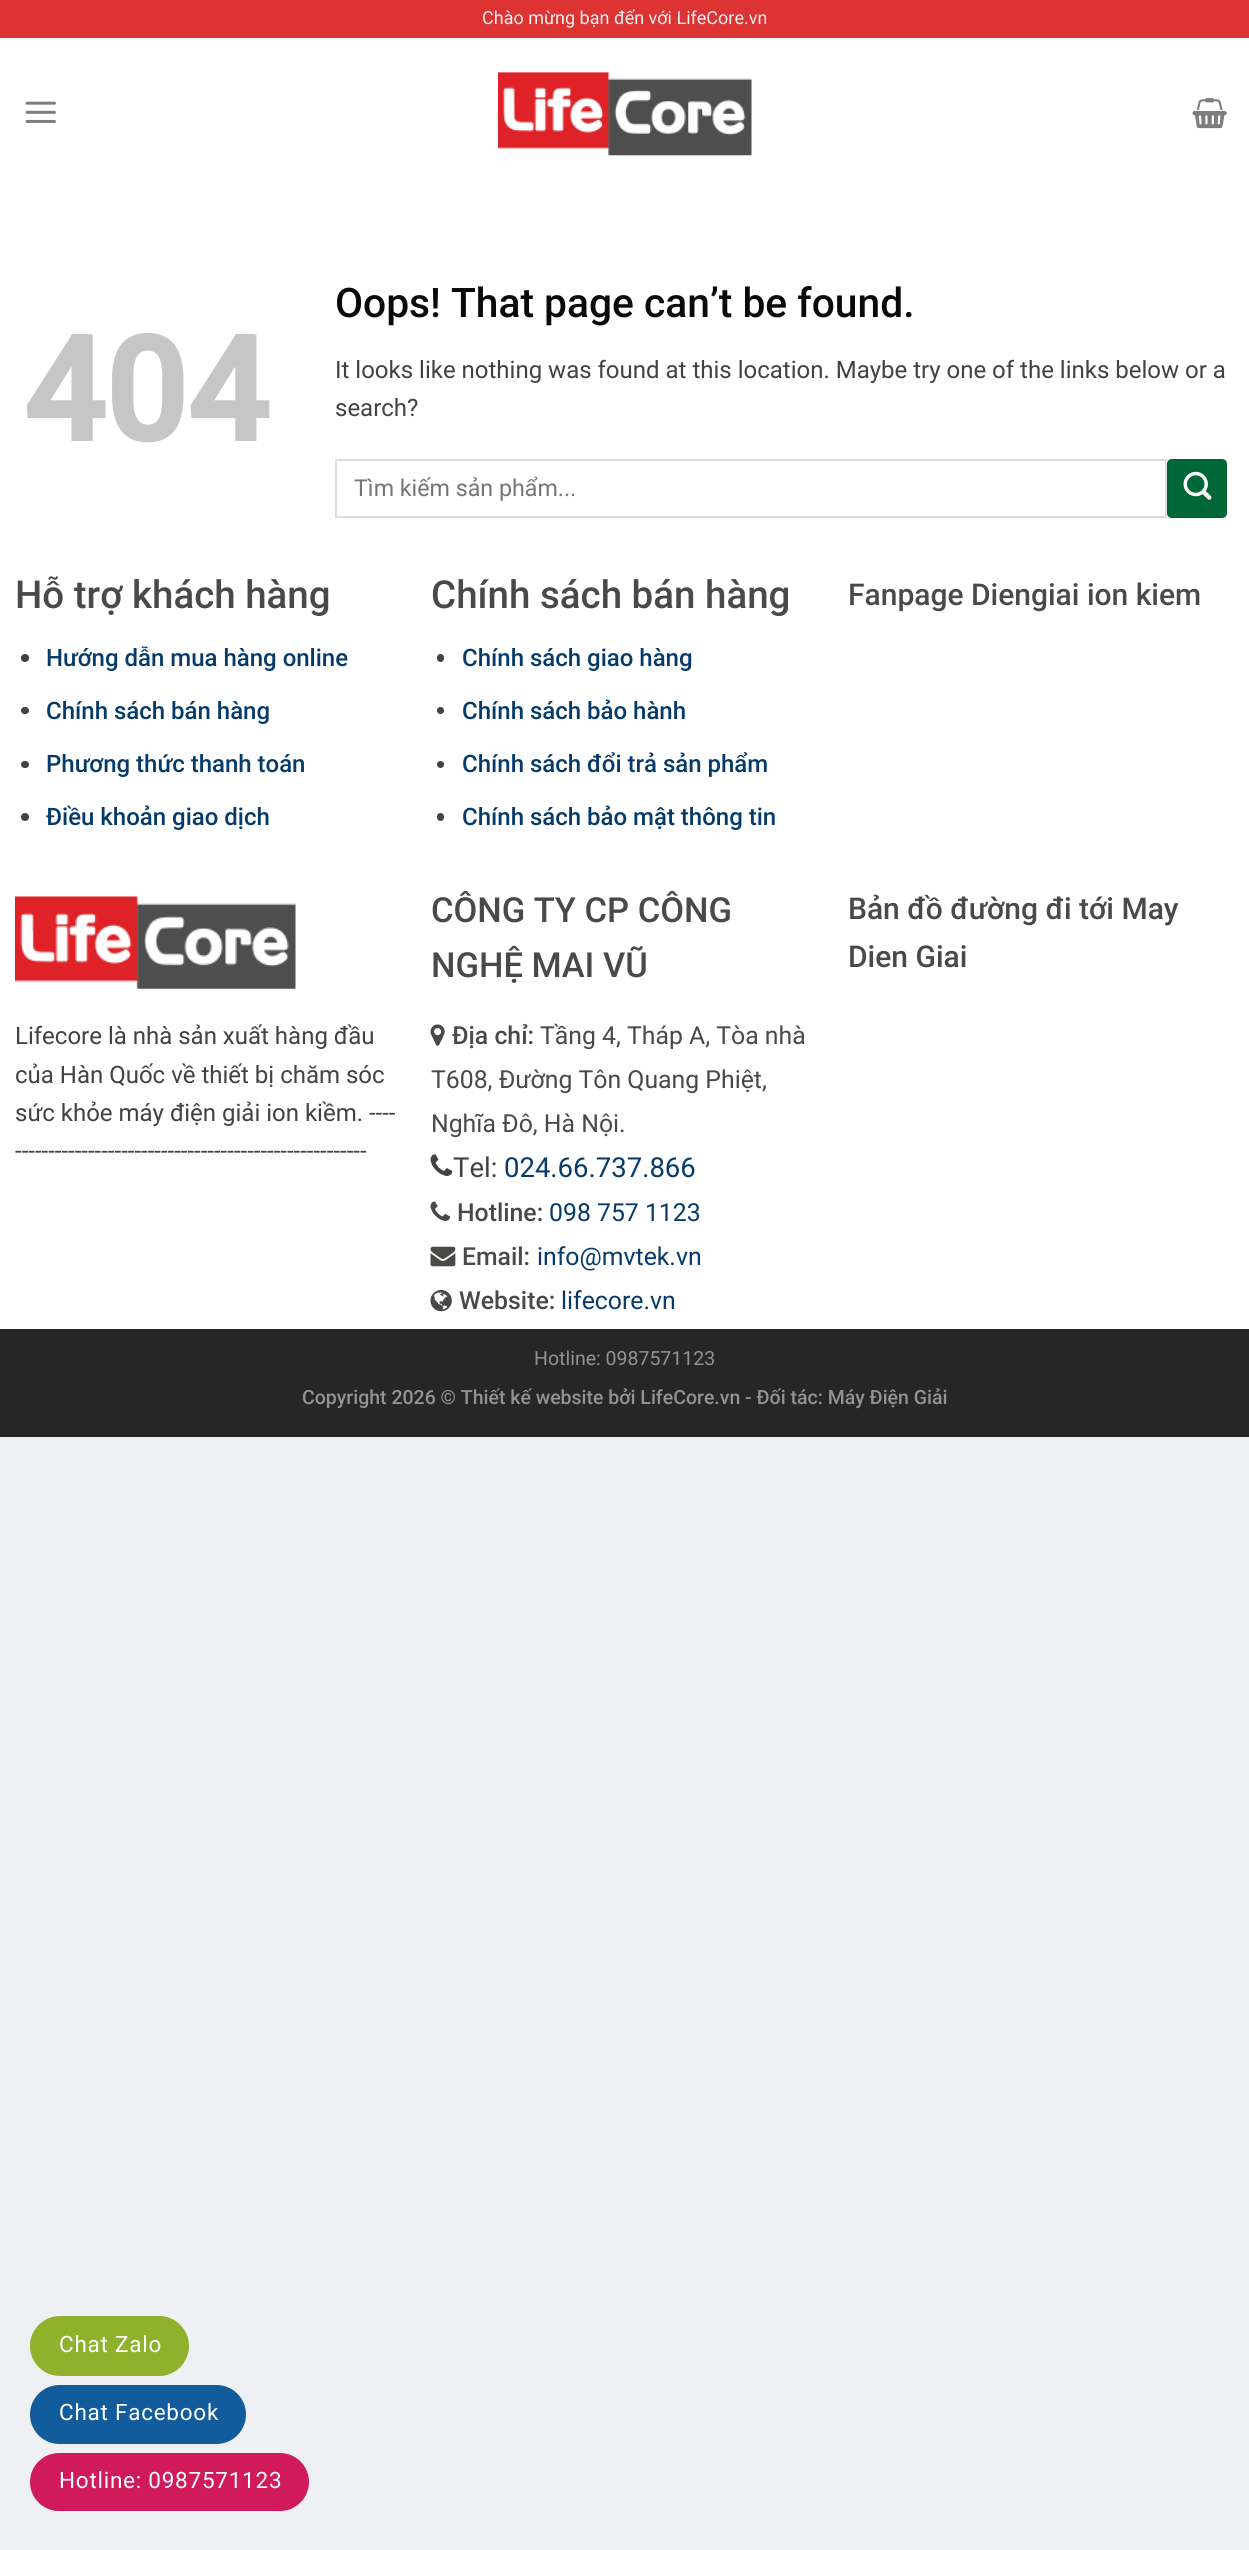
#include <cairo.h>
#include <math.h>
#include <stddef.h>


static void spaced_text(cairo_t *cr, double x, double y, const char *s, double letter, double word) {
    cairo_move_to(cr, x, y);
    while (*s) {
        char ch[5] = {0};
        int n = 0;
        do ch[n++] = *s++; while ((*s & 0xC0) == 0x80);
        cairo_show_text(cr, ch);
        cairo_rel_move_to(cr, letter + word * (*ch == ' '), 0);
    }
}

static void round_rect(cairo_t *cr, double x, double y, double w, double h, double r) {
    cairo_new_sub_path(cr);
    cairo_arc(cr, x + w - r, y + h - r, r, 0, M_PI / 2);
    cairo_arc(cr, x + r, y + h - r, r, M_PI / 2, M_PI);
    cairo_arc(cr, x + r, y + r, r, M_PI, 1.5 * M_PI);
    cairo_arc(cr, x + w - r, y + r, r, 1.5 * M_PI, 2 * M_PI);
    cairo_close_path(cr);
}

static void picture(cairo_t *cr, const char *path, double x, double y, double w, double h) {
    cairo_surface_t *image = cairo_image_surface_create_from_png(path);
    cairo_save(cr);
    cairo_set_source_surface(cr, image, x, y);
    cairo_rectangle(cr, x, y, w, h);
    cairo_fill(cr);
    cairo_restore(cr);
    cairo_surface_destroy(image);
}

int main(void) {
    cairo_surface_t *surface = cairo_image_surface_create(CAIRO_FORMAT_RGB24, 1249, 2550);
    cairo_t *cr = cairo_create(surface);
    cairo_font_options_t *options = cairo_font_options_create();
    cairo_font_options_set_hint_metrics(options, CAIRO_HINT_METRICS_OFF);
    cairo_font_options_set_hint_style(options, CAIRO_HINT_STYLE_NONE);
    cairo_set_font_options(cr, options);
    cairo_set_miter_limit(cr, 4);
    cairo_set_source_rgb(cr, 0.937, 0.941, 0.953);
    cairo_paint(cr);
    cairo_set_source_rgb(cr, 1, 1, 1);
    cairo_rectangle(cr, 0, 38, 1249, 1291);
    cairo_fill(cr);
    cairo_set_source_rgb(cr, 0.867, 0.2, 0.2);
    cairo_rectangle(cr, 0, 0, 1249, 38);
    cairo_fill(cr);
    cairo_select_font_face(cr, "Roboto", CAIRO_FONT_SLANT_NORMAL, CAIRO_FONT_WEIGHT_NORMAL);
    cairo_set_font_size(cr, 18);
    cairo_set_source_rgb(cr, 0.945, 0.945, 0.945);
    cairo_move_to(cr, 482, 24);
    cairo_show_text(cr, "Chào mừng bạn đến với LifeCore.vn");
    picture(cr, "img1.png", 25, 101, 31, 22);
    picture(cr, "img2.png", 498, 72, 254, 84);
    picture(cr, "img3.png", 1192, 98, 35, 31);
    cairo_select_font_face(cr, "Roboto", CAIRO_FONT_SLANT_NORMAL, CAIRO_FONT_WEIGHT_BOLD);
    cairo_set_font_size(cr, 144);
    cairo_set_source_rgb(cr, 0.776, 0.776, 0.776);
    cairo_move_to(cr, 23, 441);
    cairo_show_text(cr, "404");
    cairo_select_font_face(cr, "Roboto Medium", CAIRO_FONT_SLANT_NORMAL, CAIRO_FONT_WEIGHT_NORMAL);
    cairo_set_font_size(cr, 40.75);
    cairo_set_source_rgb(cr, 0.039, 0.039, 0.039);
    cairo_move_to(cr, 335, 317);
    cairo_show_text(cr, "Oops! That page can’t be found.");
    cairo_select_font_face(cr, "Roboto", CAIRO_FONT_SLANT_NORMAL, CAIRO_FONT_WEIGHT_NORMAL);
    cairo_set_font_size(cr, 24);
    cairo_set_source_rgb(cr, 0.259, 0.259, 0.259);
    cairo_move_to(cr, 335, 378);
    cairo_show_text(cr, "It looks like nothing was found at this location. Maybe try one of the links below or a");
    cairo_move_to(cr, 335, 416);
    cairo_show_text(cr, "search?");
    cairo_rectangle(cr, 336, 460, 830, 57);
    cairo_set_source_rgb(cr, 0.867, 0.867, 0.867);
    cairo_stroke(cr);
    cairo_set_font_size(cr, 23.25);
    cairo_set_source_rgb(cr, 0.459, 0.459, 0.459);
    cairo_move_to(cr, 354, 496);
    cairo_show_text(cr, "Tìm kiếm sản phẩm...");
    cairo_set_source_rgb(cr, 0, 0.408, 0.216);
    round_rect(cr, 1167, 459, 60, 59, 5);
    cairo_fill(cr);
    cairo_rectangle(cr, 1168, 460, 58, 57);
    cairo_set_source_rgba(cr, 0, 0, 0, 0.05);
    cairo_stroke(cr);
    picture(cr, "img4.png", 1183, 471, 29, 29);
    cairo_select_font_face(cr, "Roboto Medium", CAIRO_FONT_SLANT_NORMAL, CAIRO_FONT_WEIGHT_NORMAL);
    cairo_set_font_size(cr, 38.5);
    cairo_set_source_rgb(cr, 0.286, 0.286, 0.282);
    cairo_move_to(cr, 15, 608);
    cairo_show_text(cr, "Hỗ trợ khách hàng");
    cairo_set_source_rgb(cr, 0.259, 0.259, 0.259);
    cairo_new_path(cr);
    cairo_arc(cr, 25, 658, 4, 0, 2 * M_PI);
    cairo_fill(cr);
    cairo_set_font_size(cr, 24);
    cairo_set_source_rgb(cr, 0.02, 0.231, 0.42);
    cairo_move_to(cr, 46, 666);
    cairo_show_text(cr, "Hướng dẫn mua hàng online");
    cairo_set_source_rgb(cr, 0.259, 0.259, 0.259);
    round_rect(cr, 21, 707, 8, 7, 3.5);
    cairo_fill(cr);
    cairo_set_source_rgb(cr, 0.02, 0.231, 0.42);
    cairo_move_to(cr, 46, 719);
    cairo_show_text(cr, "Chính sách bán hàng");
    cairo_set_source_rgb(cr, 0.259, 0.259, 0.259);
    round_rect(cr, 21, 761, 8, 7, 3.5);
    cairo_fill(cr);
    cairo_set_source_rgb(cr, 0.02, 0.231, 0.42);
    cairo_move_to(cr, 46, 772);
    cairo_show_text(cr, "Phương thức thanh toán");
    cairo_set_source_rgb(cr, 0.259, 0.259, 0.259);
    cairo_new_path(cr);
    cairo_arc(cr, 25, 817, 4, 0, 2 * M_PI);
    cairo_fill(cr);
    cairo_set_source_rgb(cr, 0.02, 0.231, 0.42);
    cairo_move_to(cr, 46, 825);
    cairo_show_text(cr, "Điều khoản giao dịch");
    cairo_set_font_size(cr, 38.5);
    cairo_set_source_rgb(cr, 0.286, 0.286, 0.282);
    cairo_move_to(cr, 431, 608);
    cairo_show_text(cr, "Chính sách bán hàng");
    cairo_set_source_rgb(cr, 0.259, 0.259, 0.259);
    round_rect(cr, 437, 654, 7, 8, 3.5);
    cairo_fill(cr);
    cairo_set_font_size(cr, 24);
    cairo_set_source_rgb(cr, 0.02, 0.231, 0.42);
    cairo_move_to(cr, 462, 666);
    cairo_show_text(cr, "Chính sách giao hàng");
    cairo_set_source_rgb(cr, 0.259, 0.259, 0.259);
    cairo_new_path(cr);
    cairo_arc(cr, 440.5, 710.5, 3.5, 0, 2 * M_PI);
    cairo_fill(cr);
    cairo_set_source_rgb(cr, 0.02, 0.231, 0.42);
    cairo_move_to(cr, 462, 719);
    cairo_show_text(cr, "Chính sách bảo hành");
    cairo_set_source_rgb(cr, 0.259, 0.259, 0.259);
    cairo_new_path(cr);
    cairo_arc(cr, 440.5, 764.5, 3.5, 0, 2 * M_PI);
    cairo_fill(cr);
    cairo_set_source_rgb(cr, 0.02, 0.231, 0.42);
    cairo_move_to(cr, 462, 772);
    cairo_show_text(cr, "Chính sách đổi trả sản phẩm");
    cairo_set_source_rgb(cr, 0.259, 0.259, 0.259);
    round_rect(cr, 437, 813, 7, 8, 3.5);
    cairo_fill(cr);
    cairo_set_source_rgb(cr, 0.02, 0.231, 0.42);
    cairo_move_to(cr, 462, 825);
    cairo_show_text(cr, "Chính sách bảo mật thông tin");
    cairo_set_font_size(cr, 30);
    cairo_set_source_rgb(cr, 0.286, 0.286, 0.282);
    cairo_move_to(cr, 848, 605);
    cairo_show_text(cr, "Fanpage Diengiai ion kiem");
    cairo_set_font_size(cr, 34.5);
    cairo_move_to(cr, 431, 922);
    cairo_show_text(cr, "CÔNG TY CP CÔNG");
    cairo_move_to(cr, 431, 977);
    cairo_show_text(cr, "NGHỆ MAI VŨ");
    picture(cr, "img5.png", 430, 1024, 15, 22);
    cairo_set_font_size(cr, 24.8);
    cairo_move_to(cr, 452, 1044);
    cairo_show_text(cr, "Địa chỉ:");
    cairo_select_font_face(cr, "Roboto", CAIRO_FONT_SLANT_NORMAL, CAIRO_FONT_WEIGHT_NORMAL);
    cairo_move_to(cr, 540, 1044);
    cairo_show_text(cr, "Tầng 4, Tháp A, Tòa nhà");
    cairo_move_to(cr, 431, 1088);
    cairo_show_text(cr, "T608, Đường Tôn Quang Phiệt,");
    cairo_move_to(cr, 431, 1132);
    cairo_show_text(cr, "Nghĩa Đô, Hà Nội.");
    picture(cr, "img6.png", 430, 1154, 23, 22);
    cairo_set_font_size(cr, 27.5);
    cairo_set_source_rgb(cr, 0.259, 0.259, 0.259);
    cairo_move_to(cr, 453, 1177);
    cairo_show_text(cr, "Tel:");
    cairo_set_source_rgb(cr, 0.02, 0.231, 0.42);
    cairo_move_to(cr, 504, 1177);
    cairo_show_text(cr, "024.66.737.866");
    picture(cr, "img7.png", 430, 1201, 20, 20);
    cairo_select_font_face(cr, "Roboto Medium", CAIRO_FONT_SLANT_NORMAL, CAIRO_FONT_WEIGHT_NORMAL);
    cairo_set_font_size(cr, 24.8);
    cairo_set_source_rgb(cr, 0.286, 0.286, 0.282);
    cairo_move_to(cr, 457, 1221);
    cairo_show_text(cr, "Hotline:");
    cairo_select_font_face(cr, "Roboto", CAIRO_FONT_SLANT_NORMAL, CAIRO_FONT_WEIGHT_NORMAL);
    cairo_set_source_rgb(cr, 0.02, 0.231, 0.42);
    cairo_move_to(cr, 549, 1221);
    cairo_show_text(cr, "098 757 1123");
    picture(cr, "img8.png", 430, 1246, 26, 21);
    cairo_select_font_face(cr, "Roboto Medium", CAIRO_FONT_SLANT_NORMAL, CAIRO_FONT_WEIGHT_NORMAL);
    cairo_set_source_rgb(cr, 0.286, 0.286, 0.282);
    cairo_move_to(cr, 462, 1265);
    cairo_show_text(cr, "Email:");
    cairo_select_font_face(cr, "Roboto", CAIRO_FONT_SLANT_NORMAL, CAIRO_FONT_WEIGHT_NORMAL);
    cairo_set_source_rgb(cr, 0.02, 0.231, 0.42);
    cairo_move_to(cr, 537, 1265);
    cairo_show_text(cr, "info@mvtek.vn");
    picture(cr, "img9.png", 430, 1290, 22, 22);
    cairo_select_font_face(cr, "Roboto Medium", CAIRO_FONT_SLANT_NORMAL, CAIRO_FONT_WEIGHT_NORMAL);
    cairo_set_source_rgb(cr, 0.286, 0.286, 0.282);
    cairo_move_to(cr, 459, 1309);
    cairo_show_text(cr, "Website:");
    cairo_select_font_face(cr, "Roboto", CAIRO_FONT_SLANT_NORMAL, CAIRO_FONT_WEIGHT_NORMAL);
    cairo_set_source_rgb(cr, 0.02, 0.231, 0.42);
    cairo_move_to(cr, 561, 1309);
    cairo_show_text(cr, "lifecore.vn");
    cairo_select_font_face(cr, "Roboto Medium", CAIRO_FONT_SLANT_NORMAL, CAIRO_FONT_WEIGHT_NORMAL);
    cairo_set_font_size(cr, 30);
    cairo_set_source_rgb(cr, 0.286, 0.286, 0.282);
    cairo_move_to(cr, 848, 919);
    cairo_show_text(cr, "Bản đồ đường đi tới May");
    cairo_move_to(cr, 848, 967);
    cairo_show_text(cr, "Dien Giai");
    picture(cr, "img10.png", 15, 896, 281, 94);
    cairo_select_font_face(cr, "Roboto", CAIRO_FONT_SLANT_NORMAL, CAIRO_FONT_WEIGHT_NORMAL);
    cairo_set_font_size(cr, 24);
    cairo_set_source_rgb(cr, 0.259, 0.259, 0.259);
    cairo_move_to(cr, 15, 1044);
    cairo_show_text(cr, "Lifecore là nhà sản xuất hàng đầu");
    cairo_move_to(cr, 15, 1083);
    cairo_show_text(cr, "của Hàn Quốc về thiết bị chăm sóc");
    cairo_move_to(cr, 15, 1121);
    cairo_show_text(cr, "sức khỏe máy điện giải ion kiềm. ----");
    cairo_move_to(cr, 15, 1159);
    cairo_show_text(cr, "-----------------------------------------------------");
    cairo_set_source_rgb(cr, 0.149, 0.149, 0.149);
    cairo_rectangle(cr, 0, 1329, 1249, 108);
    cairo_fill(cr);
    cairo_set_font_size(cr, 19.5);
    cairo_set_source_rgb(cr, 0.576, 0.576, 0.576);
    cairo_move_to(cr, 534, 1365);
    cairo_show_text(cr, "Hotline: 0987571123");
    cairo_select_font_face(cr, "Roboto Medium", CAIRO_FONT_SLANT_NORMAL, CAIRO_FONT_WEIGHT_NORMAL);
    cairo_move_to(cr, 302, 1404);
    cairo_show_text(cr, "Copyright 2026 © Thiết kế website bởi LifeCore.vn - Đối tác: Máy Điện Giải");
    cairo_set_source_rgb(cr, 0.557, 0.698, 0.169);
    round_rect(cr, 30, 2316, 159, 60, 30);
    cairo_fill(cr);
    cairo_select_font_face(cr, "Roboto", CAIRO_FONT_SLANT_NORMAL, CAIRO_FONT_WEIGHT_NORMAL);
    cairo_set_font_size(cr, 22.5);
    cairo_set_source_rgb(cr, 1, 1, 1);
    spaced_text(cr, 59, 2352, "Chat Zalo", 0.75, 0);
    cairo_set_source_rgb(cr, 0.071, 0.361, 0.62);
    round_rect(cr, 30, 2385, 216, 59, 29.5);
    cairo_fill(cr);
    cairo_set_source_rgb(cr, 1, 1, 1);
    spaced_text(cr, 59, 2420, "Chat Facebook", 0.75, 0);
    cairo_set_source_rgb(cr, 0.82, 0.102, 0.349);
    round_rect(cr, 30, 2453, 279, 58, 29);
    cairo_fill(cr);
    cairo_set_source_rgb(cr, 1, 1, 1);
    spaced_text(cr, 59, 2488, "Hotline: 0987571123", 0.75, 0);
    cairo_surface_write_to_png(surface, "page.png");
    cairo_font_options_destroy(options);
    cairo_destroy(cr);
    cairo_surface_destroy(surface);
    return 0;
}
